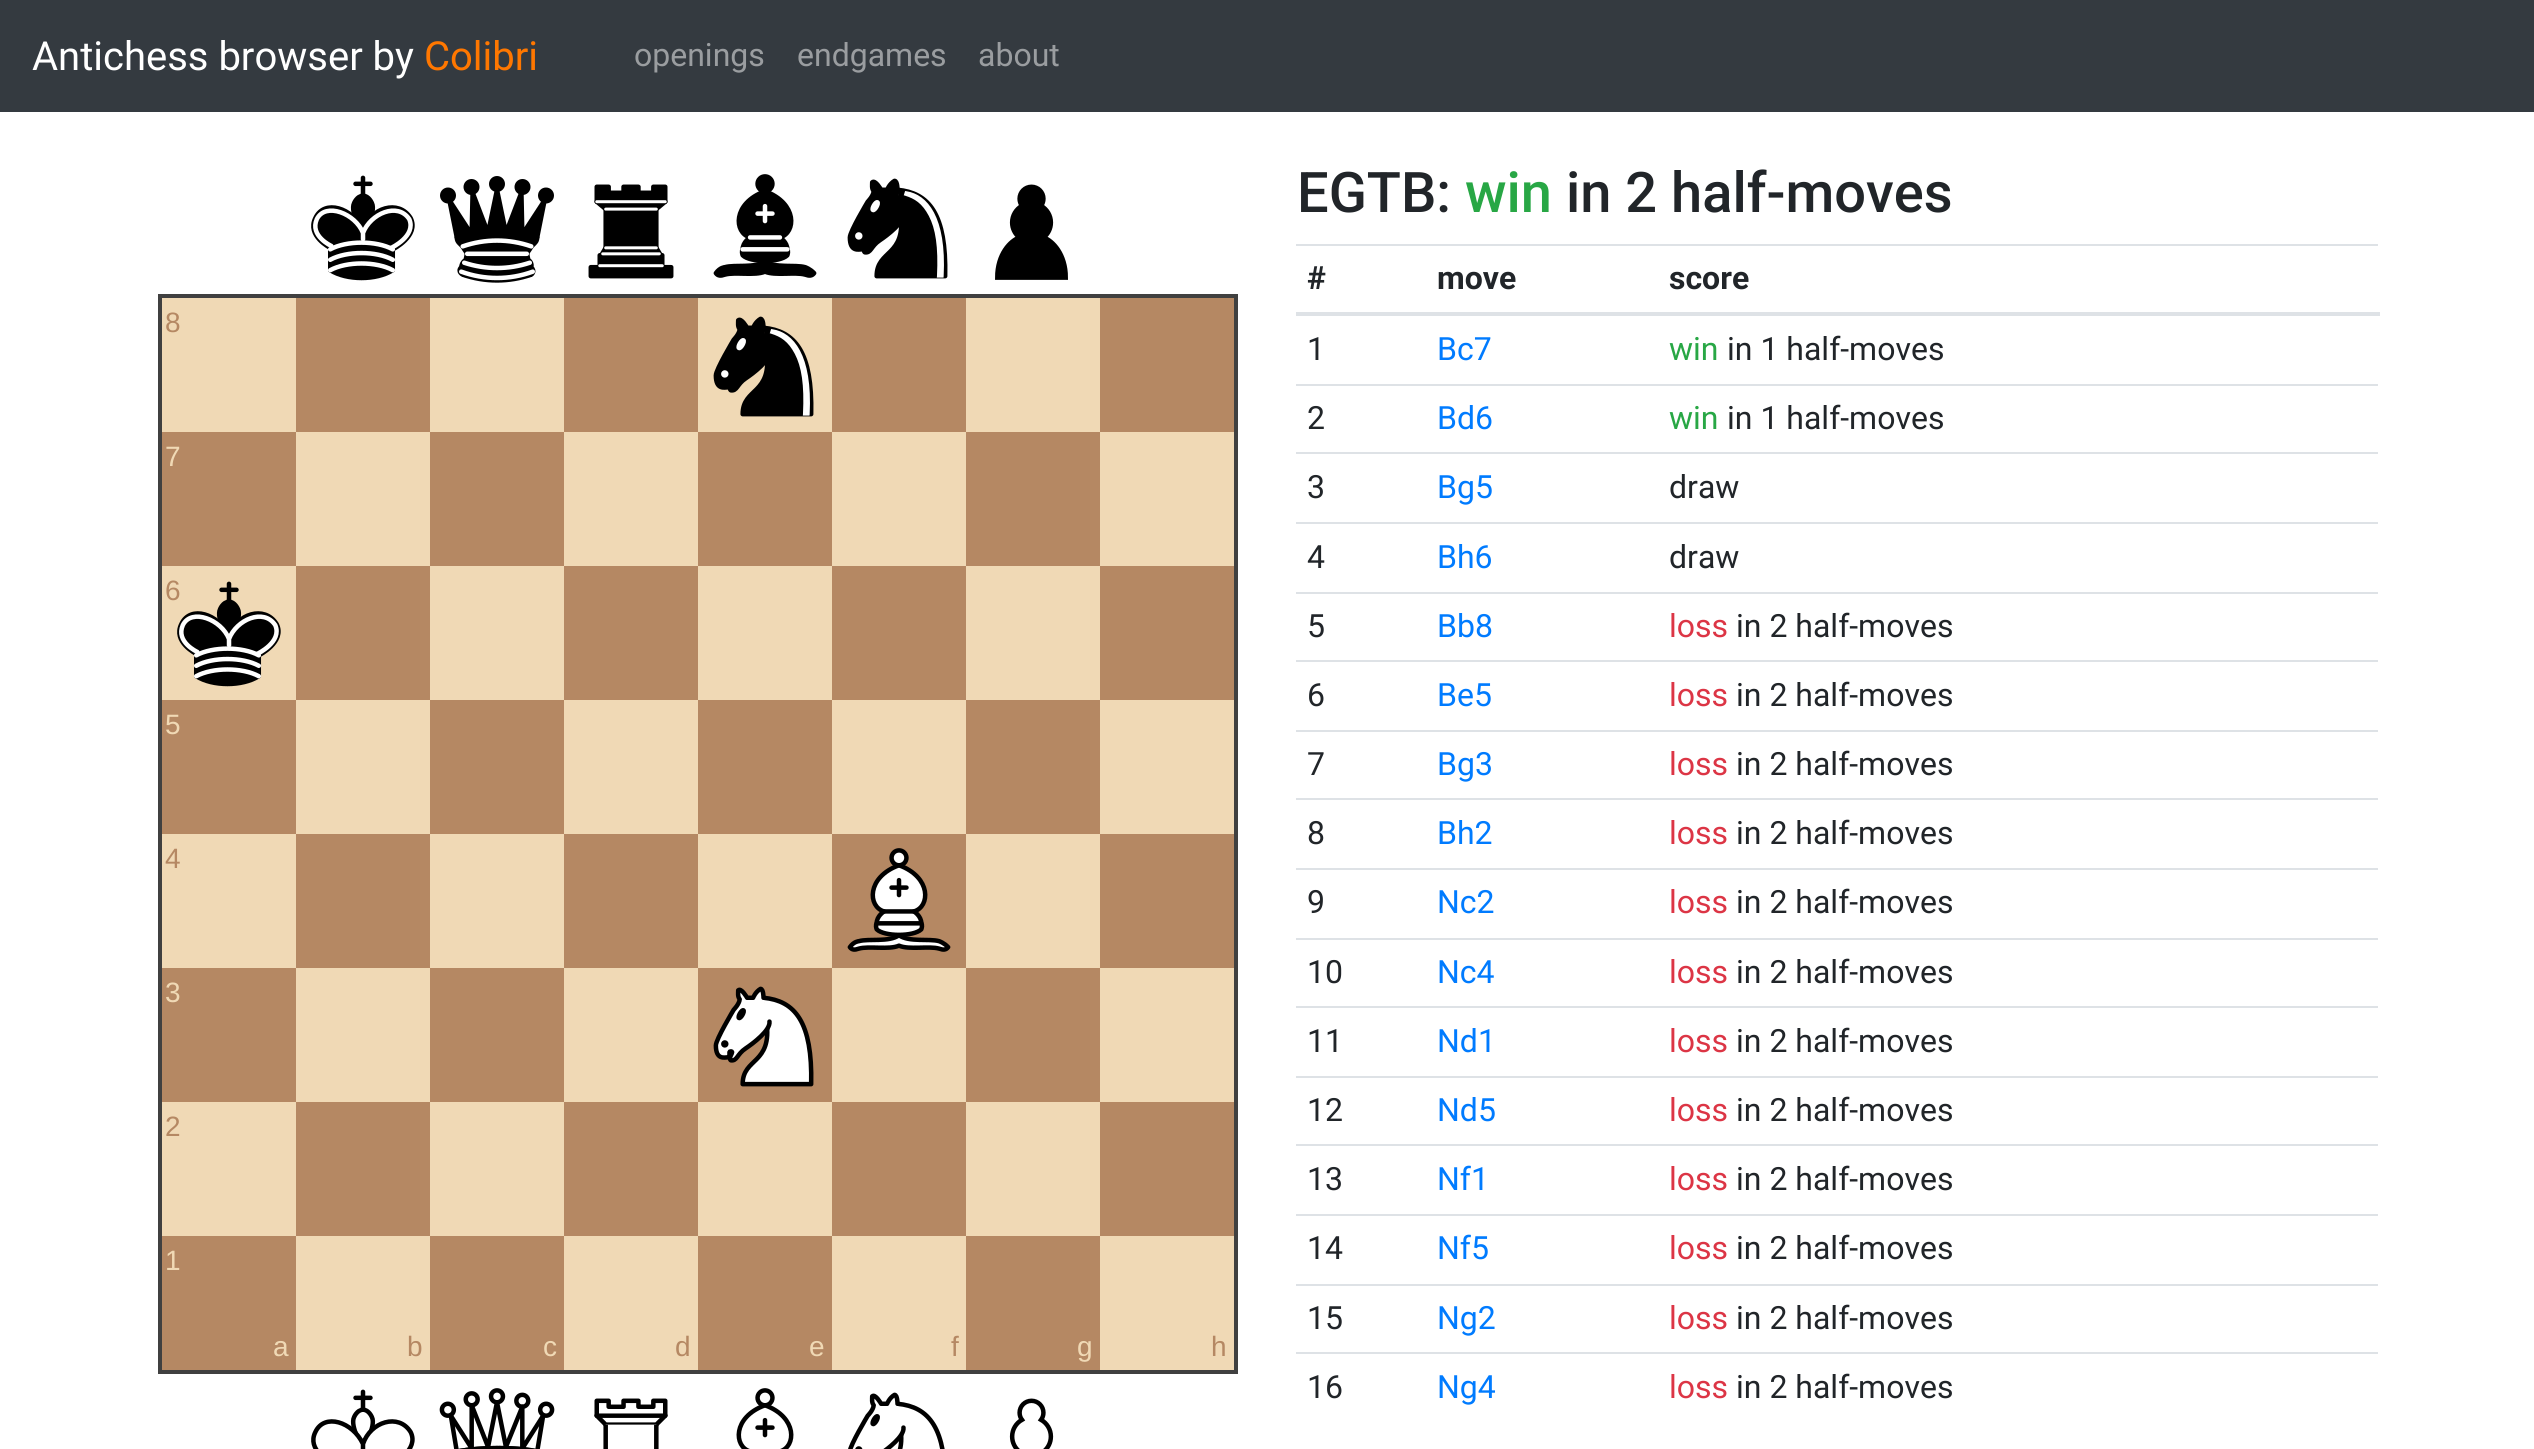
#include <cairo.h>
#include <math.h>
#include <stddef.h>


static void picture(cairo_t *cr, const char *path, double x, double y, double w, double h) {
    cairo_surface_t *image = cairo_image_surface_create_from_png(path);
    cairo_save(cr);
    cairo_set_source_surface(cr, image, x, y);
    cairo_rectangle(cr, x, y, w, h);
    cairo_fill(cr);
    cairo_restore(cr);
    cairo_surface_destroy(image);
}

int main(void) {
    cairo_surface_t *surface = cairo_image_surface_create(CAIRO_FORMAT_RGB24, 2534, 1449);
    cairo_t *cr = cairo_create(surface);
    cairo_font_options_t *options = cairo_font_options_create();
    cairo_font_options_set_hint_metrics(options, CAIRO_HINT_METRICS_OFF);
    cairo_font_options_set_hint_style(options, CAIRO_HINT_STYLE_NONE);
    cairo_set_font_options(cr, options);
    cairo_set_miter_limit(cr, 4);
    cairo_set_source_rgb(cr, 1, 1, 1);
    cairo_paint(cr);
    cairo_set_source_rgb(cr, 0.204, 0.227, 0.251);
    cairo_rectangle(cr, 0, 0, 2534, 112);
    cairo_fill(cr);
    cairo_select_font_face(cr, "Roboto", CAIRO_FONT_SLANT_NORMAL, CAIRO_FONT_WEIGHT_NORMAL);
    cairo_set_font_size(cr, 40);
    cairo_set_source_rgb(cr, 1, 1, 1);
    cairo_move_to(cr, 32, 70);
    cairo_show_text(cr, "Antichess browser by");
    cairo_set_source_rgb(cr, 1, 0.467, 0);
    cairo_move_to(cr, 424, 70);
    cairo_show_text(cr, "Colibri");
    cairo_set_font_size(cr, 32);
    cairo_set_source_rgb(cr, 0.604, 0.616, 0.627);
    cairo_move_to(cr, 634, 66);
    cairo_show_text(cr, "openings");
    cairo_move_to(cr, 797, 66);
    cairo_show_text(cr, "endgames");
    cairo_move_to(cr, 978, 66);
    cairo_show_text(cr, "about");
    picture(cr, "img1.png", 311, 175, 104, 106);
    picture(cr, "img2.png", 440, 176, 114, 107);
    picture(cr, "img3.png", 588, 184, 86, 95);
    picture(cr, "img4.png", 713, 174, 104, 104);
    picture(cr, "img5.png", 847, 178, 101, 101);
    picture(cr, "img6.png", 995, 184, 73, 96);
    cairo_rectangle(cr, 160, 296, 1076, 1076);
    cairo_set_source_rgb(cr, 0.251, 0.251, 0.251);
    cairo_set_line_width(cr, 4);
    cairo_stroke(cr);
    cairo_set_source_rgb(cr, 0.941, 0.851, 0.71);
    cairo_rectangle(cr, 162, 298, 134, 134);
    cairo_fill(cr);
    cairo_select_font_face(cr, "Liberation Sans", CAIRO_FONT_SLANT_NORMAL, CAIRO_FONT_WEIGHT_NORMAL);
    cairo_set_font_size(cr, 28);
    cairo_set_source_rgb(cr, 0.71, 0.533, 0.388);
    cairo_move_to(cr, 165, 332);
    cairo_show_text(cr, "8");
    cairo_rectangle(cr, 296, 298, 134, 134);
    cairo_fill(cr);
    cairo_set_source_rgb(cr, 0.941, 0.851, 0.71);
    cairo_rectangle(cr, 430, 298, 134, 134);
    cairo_fill(cr);
    cairo_set_source_rgb(cr, 0.71, 0.533, 0.388);
    cairo_rectangle(cr, 564, 298, 134, 134);
    cairo_fill(cr);
    cairo_set_source_rgb(cr, 0.941, 0.851, 0.71);
    cairo_rectangle(cr, 698, 298, 134, 134);
    cairo_fill(cr);
    picture(cr, "img7.png", 713, 316, 101, 101);
    cairo_set_source_rgb(cr, 0.71, 0.533, 0.388);
    cairo_rectangle(cr, 832, 298, 134, 134);
    cairo_fill(cr);
    cairo_set_source_rgb(cr, 0.941, 0.851, 0.71);
    cairo_rectangle(cr, 966, 298, 134, 134);
    cairo_fill(cr);
    cairo_set_source_rgb(cr, 0.71, 0.533, 0.388);
    cairo_rectangle(cr, 1100, 298, 134, 134);
    cairo_fill(cr);
    cairo_rectangle(cr, 162, 432, 134, 134);
    cairo_fill(cr);
    cairo_set_source_rgb(cr, 0.941, 0.851, 0.71);
    cairo_move_to(cr, 165, 466);
    cairo_show_text(cr, "7");
    cairo_rectangle(cr, 296, 432, 134, 134);
    cairo_fill(cr);
    cairo_set_source_rgb(cr, 0.71, 0.533, 0.388);
    cairo_rectangle(cr, 430, 432, 134, 134);
    cairo_fill(cr);
    cairo_set_source_rgb(cr, 0.941, 0.851, 0.71);
    cairo_rectangle(cr, 564, 432, 134, 134);
    cairo_fill(cr);
    cairo_set_source_rgb(cr, 0.71, 0.533, 0.388);
    cairo_rectangle(cr, 698, 432, 134, 134);
    cairo_fill(cr);
    cairo_set_source_rgb(cr, 0.941, 0.851, 0.71);
    cairo_rectangle(cr, 832, 432, 134, 134);
    cairo_fill(cr);
    cairo_set_source_rgb(cr, 0.71, 0.533, 0.388);
    cairo_rectangle(cr, 966, 432, 134, 134);
    cairo_fill(cr);
    cairo_set_source_rgb(cr, 0.941, 0.851, 0.71);
    cairo_rectangle(cr, 1100, 432, 134, 134);
    cairo_fill(cr);
    cairo_rectangle(cr, 162, 566, 134, 134);
    cairo_fill(cr);
    picture(cr, "img8.png", 177, 581, 104, 106);
    cairo_set_source_rgb(cr, 0.71, 0.533, 0.388);
    cairo_move_to(cr, 165, 600);
    cairo_show_text(cr, "6");
    cairo_rectangle(cr, 296, 566, 134, 134);
    cairo_fill(cr);
    cairo_set_source_rgb(cr, 0.941, 0.851, 0.71);
    cairo_rectangle(cr, 430, 566, 134, 134);
    cairo_fill(cr);
    cairo_set_source_rgb(cr, 0.71, 0.533, 0.388);
    cairo_rectangle(cr, 564, 566, 134, 134);
    cairo_fill(cr);
    cairo_set_source_rgb(cr, 0.941, 0.851, 0.71);
    cairo_rectangle(cr, 698, 566, 134, 134);
    cairo_fill(cr);
    cairo_set_source_rgb(cr, 0.71, 0.533, 0.388);
    cairo_rectangle(cr, 832, 566, 134, 134);
    cairo_fill(cr);
    cairo_set_source_rgb(cr, 0.941, 0.851, 0.71);
    cairo_rectangle(cr, 966, 566, 134, 134);
    cairo_fill(cr);
    cairo_set_source_rgb(cr, 0.71, 0.533, 0.388);
    cairo_rectangle(cr, 1100, 566, 134, 134);
    cairo_fill(cr);
    cairo_rectangle(cr, 162, 700, 134, 134);
    cairo_fill(cr);
    cairo_set_source_rgb(cr, 0.941, 0.851, 0.71);
    cairo_move_to(cr, 165, 734);
    cairo_show_text(cr, "5");
    cairo_rectangle(cr, 296, 700, 134, 134);
    cairo_fill(cr);
    cairo_set_source_rgb(cr, 0.71, 0.533, 0.388);
    cairo_rectangle(cr, 430, 700, 134, 134);
    cairo_fill(cr);
    cairo_set_source_rgb(cr, 0.941, 0.851, 0.71);
    cairo_rectangle(cr, 564, 700, 134, 134);
    cairo_fill(cr);
    cairo_set_source_rgb(cr, 0.71, 0.533, 0.388);
    cairo_rectangle(cr, 698, 700, 134, 134);
    cairo_fill(cr);
    cairo_set_source_rgb(cr, 0.941, 0.851, 0.71);
    cairo_rectangle(cr, 832, 700, 134, 134);
    cairo_fill(cr);
    cairo_set_source_rgb(cr, 0.71, 0.533, 0.388);
    cairo_rectangle(cr, 966, 700, 134, 134);
    cairo_fill(cr);
    cairo_set_source_rgb(cr, 0.941, 0.851, 0.71);
    cairo_rectangle(cr, 1100, 700, 134, 134);
    cairo_fill(cr);
    cairo_rectangle(cr, 162, 834, 134, 134);
    cairo_fill(cr);
    cairo_set_source_rgb(cr, 0.71, 0.533, 0.388);
    cairo_move_to(cr, 165, 868);
    cairo_show_text(cr, "4");
    cairo_rectangle(cr, 296, 834, 134, 134);
    cairo_fill(cr);
    cairo_set_source_rgb(cr, 0.941, 0.851, 0.71);
    cairo_rectangle(cr, 430, 834, 134, 134);
    cairo_fill(cr);
    cairo_set_source_rgb(cr, 0.71, 0.533, 0.388);
    cairo_rectangle(cr, 564, 834, 134, 134);
    cairo_fill(cr);
    cairo_set_source_rgb(cr, 0.941, 0.851, 0.71);
    cairo_rectangle(cr, 698, 834, 134, 134);
    cairo_fill(cr);
    cairo_set_source_rgb(cr, 0.71, 0.533, 0.388);
    cairo_rectangle(cr, 832, 834, 134, 134);
    cairo_fill(cr);
    picture(cr, "img9.png", 847, 848, 104, 104);
    cairo_set_source_rgb(cr, 0.941, 0.851, 0.71);
    cairo_rectangle(cr, 966, 834, 134, 134);
    cairo_fill(cr);
    cairo_set_source_rgb(cr, 0.71, 0.533, 0.388);
    cairo_rectangle(cr, 1100, 834, 134, 134);
    cairo_fill(cr);
    cairo_rectangle(cr, 162, 968, 134, 134);
    cairo_fill(cr);
    cairo_set_source_rgb(cr, 0.941, 0.851, 0.71);
    cairo_move_to(cr, 165, 1002);
    cairo_show_text(cr, "3");
    cairo_rectangle(cr, 296, 968, 134, 134);
    cairo_fill(cr);
    cairo_set_source_rgb(cr, 0.71, 0.533, 0.388);
    cairo_rectangle(cr, 430, 968, 134, 134);
    cairo_fill(cr);
    cairo_set_source_rgb(cr, 0.941, 0.851, 0.71);
    cairo_rectangle(cr, 564, 968, 134, 134);
    cairo_fill(cr);
    cairo_set_source_rgb(cr, 0.71, 0.533, 0.388);
    cairo_rectangle(cr, 698, 968, 134, 134);
    cairo_fill(cr);
    picture(cr, "img10.png", 713, 986, 101, 101);
    cairo_set_source_rgb(cr, 0.941, 0.851, 0.71);
    cairo_rectangle(cr, 832, 968, 134, 134);
    cairo_fill(cr);
    cairo_set_source_rgb(cr, 0.71, 0.533, 0.388);
    cairo_rectangle(cr, 966, 968, 134, 134);
    cairo_fill(cr);
    cairo_set_source_rgb(cr, 0.941, 0.851, 0.71);
    cairo_rectangle(cr, 1100, 968, 134, 134);
    cairo_fill(cr);
    cairo_rectangle(cr, 162, 1102, 134, 134);
    cairo_fill(cr);
    cairo_set_source_rgb(cr, 0.71, 0.533, 0.388);
    cairo_move_to(cr, 165, 1136);
    cairo_show_text(cr, "2");
    cairo_rectangle(cr, 296, 1102, 134, 134);
    cairo_fill(cr);
    cairo_set_source_rgb(cr, 0.941, 0.851, 0.71);
    cairo_rectangle(cr, 430, 1102, 134, 134);
    cairo_fill(cr);
    cairo_set_source_rgb(cr, 0.71, 0.533, 0.388);
    cairo_rectangle(cr, 564, 1102, 134, 134);
    cairo_fill(cr);
    cairo_set_source_rgb(cr, 0.941, 0.851, 0.71);
    cairo_rectangle(cr, 698, 1102, 134, 134);
    cairo_fill(cr);
    cairo_set_source_rgb(cr, 0.71, 0.533, 0.388);
    cairo_rectangle(cr, 832, 1102, 134, 134);
    cairo_fill(cr);
    cairo_set_source_rgb(cr, 0.941, 0.851, 0.71);
    cairo_rectangle(cr, 966, 1102, 134, 134);
    cairo_fill(cr);
    cairo_set_source_rgb(cr, 0.71, 0.533, 0.388);
    cairo_rectangle(cr, 1100, 1102, 134, 134);
    cairo_fill(cr);
    cairo_rectangle(cr, 162, 1236, 134, 134);
    cairo_fill(cr);
    cairo_set_source_rgb(cr, 0.941, 0.851, 0.71);
    cairo_move_to(cr, 165, 1270);
    cairo_show_text(cr, "1");
    cairo_move_to(cr, 273, 1356);
    cairo_show_text(cr, "a");
    cairo_rectangle(cr, 296, 1236, 134, 134);
    cairo_fill(cr);
    cairo_set_source_rgb(cr, 0.71, 0.533, 0.388);
    cairo_move_to(cr, 407, 1356);
    cairo_show_text(cr, "b");
    cairo_rectangle(cr, 430, 1236, 134, 134);
    cairo_fill(cr);
    cairo_set_source_rgb(cr, 0.941, 0.851, 0.71);
    cairo_move_to(cr, 543, 1356);
    cairo_show_text(cr, "c");
    cairo_rectangle(cr, 564, 1236, 134, 134);
    cairo_fill(cr);
    cairo_set_source_rgb(cr, 0.71, 0.533, 0.388);
    cairo_move_to(cr, 675, 1356);
    cairo_show_text(cr, "d");
    cairo_rectangle(cr, 698, 1236, 134, 134);
    cairo_fill(cr);
    cairo_set_source_rgb(cr, 0.941, 0.851, 0.71);
    cairo_move_to(cr, 809, 1356);
    cairo_show_text(cr, "e");
    cairo_rectangle(cr, 832, 1236, 134, 134);
    cairo_fill(cr);
    cairo_set_source_rgb(cr, 0.71, 0.533, 0.388);
    cairo_move_to(cr, 951, 1356);
    cairo_show_text(cr, "f");
    cairo_rectangle(cr, 966, 1236, 134, 134);
    cairo_fill(cr);
    cairo_set_source_rgb(cr, 0.941, 0.851, 0.71);
    cairo_move_to(cr, 1077, 1356);
    cairo_show_text(cr, "g");
    cairo_rectangle(cr, 1100, 1236, 134, 134);
    cairo_fill(cr);
    cairo_set_source_rgb(cr, 0.71, 0.533, 0.388);
    cairo_move_to(cr, 1211, 1356);
    cairo_show_text(cr, "h");
    picture(cr, "img11.png", 311, 1389, 104, 60);
    picture(cr, "img12.png", 439, 1388, 116, 61);
    picture(cr, "img13.png", 594, 1398, 74, 51);
    picture(cr, "img14.png", 736, 1388, 58, 61);
    picture(cr, "img15.png", 848, 1392, 97, 57);
    picture(cr, "img16.png", 1009, 1398, 45, 51);
    cairo_select_font_face(cr, "Roboto Medium", CAIRO_FONT_SLANT_NORMAL, CAIRO_FONT_WEIGHT_NORMAL);
    cairo_set_font_size(cr, 56);
    cairo_set_source_rgb(cr, 0.129, 0.145, 0.161);
    cairo_move_to(cr, 1297, 212);
    cairo_show_text(cr, "EGTB:");
    cairo_set_source_rgb(cr, 0.157, 0.655, 0.271);
    cairo_move_to(cr, 1465, 212);
    cairo_show_text(cr, "win");
    cairo_set_source_rgb(cr, 0.129, 0.145, 0.161);
    cairo_move_to(cr, 1566, 212);
    cairo_show_text(cr, "in 2 half-moves");
    cairo_select_font_face(cr, "Roboto", CAIRO_FONT_SLANT_NORMAL, CAIRO_FONT_WEIGHT_BOLD);
    cairo_set_font_size(cr, 32);
    cairo_move_to(cr, 1307, 289);
    cairo_show_text(cr, "#");
    cairo_move_to(cr, 1437, 289);
    cairo_show_text(cr, "move");
    cairo_set_source_rgb(cr, 0.871, 0.886, 0.902);
    cairo_rectangle(cr, 1296, 244, 1082, 2);
    cairo_fill(cr);
    cairo_rectangle(cr, 1296, 312, 1084, 4);
    cairo_fill(cr);
    cairo_set_source_rgb(cr, 0.129, 0.145, 0.161);
    cairo_move_to(cr, 1669, 289);
    cairo_show_text(cr, "score");
    cairo_select_font_face(cr, "Roboto", CAIRO_FONT_SLANT_NORMAL, CAIRO_FONT_WEIGHT_NORMAL);
    cairo_move_to(cr, 1307, 360);
    cairo_show_text(cr, "1");
    cairo_set_source_rgb(cr, 0, 0.482, 1);
    cairo_move_to(cr, 1437, 360);
    cairo_show_text(cr, "Bc7");
    cairo_set_source_rgb(cr, 0.157, 0.655, 0.271);
    cairo_move_to(cr, 1669, 360);
    cairo_show_text(cr, "win");
    cairo_set_source_rgb(cr, 0.129, 0.145, 0.161);
    cairo_move_to(cr, 1727, 360);
    cairo_show_text(cr, "in 1 half-moves");
    cairo_move_to(cr, 1307, 429);
    cairo_show_text(cr, "2");
    cairo_set_source_rgb(cr, 0, 0.482, 1);
    cairo_move_to(cr, 1437, 429);
    cairo_show_text(cr, "Bd6");
    cairo_set_source_rgb(cr, 0.871, 0.886, 0.902);
    cairo_rectangle(cr, 1296, 384, 1082, 2);
    cairo_fill(cr);
    cairo_set_source_rgb(cr, 0.157, 0.655, 0.271);
    cairo_move_to(cr, 1669, 429);
    cairo_show_text(cr, "win");
    cairo_set_source_rgb(cr, 0.129, 0.145, 0.161);
    cairo_move_to(cr, 1727, 429);
    cairo_show_text(cr, "in 1 half-moves");
    cairo_move_to(cr, 1307, 498);
    cairo_show_text(cr, "3");
    cairo_set_source_rgb(cr, 0, 0.482, 1);
    cairo_move_to(cr, 1437, 498);
    cairo_show_text(cr, "Bg5");
    cairo_set_source_rgb(cr, 0.871, 0.886, 0.902);
    cairo_rectangle(cr, 1296, 452, 1082, 2);
    cairo_fill(cr);
    cairo_set_source_rgb(cr, 0.129, 0.145, 0.161);
    cairo_move_to(cr, 1669, 498);
    cairo_show_text(cr, "draw");
    cairo_move_to(cr, 1307, 568);
    cairo_show_text(cr, "4");
    cairo_set_source_rgb(cr, 0, 0.482, 1);
    cairo_move_to(cr, 1437, 568);
    cairo_show_text(cr, "Bh6");
    cairo_set_source_rgb(cr, 0.871, 0.886, 0.902);
    cairo_rectangle(cr, 1296, 522, 1082, 2);
    cairo_fill(cr);
    cairo_set_source_rgb(cr, 0.129, 0.145, 0.161);
    cairo_move_to(cr, 1669, 568);
    cairo_show_text(cr, "draw");
    cairo_move_to(cr, 1307, 637);
    cairo_show_text(cr, "5");
    cairo_set_source_rgb(cr, 0, 0.482, 1);
    cairo_move_to(cr, 1437, 637);
    cairo_show_text(cr, "Bb8");
    cairo_set_source_rgb(cr, 0.871, 0.886, 0.902);
    cairo_rectangle(cr, 1296, 592, 1082, 2);
    cairo_fill(cr);
    cairo_set_source_rgb(cr, 0.863, 0.208, 0.271);
    cairo_move_to(cr, 1669, 637);
    cairo_show_text(cr, "loss");
    cairo_set_source_rgb(cr, 0.129, 0.145, 0.161);
    cairo_move_to(cr, 1736, 637);
    cairo_show_text(cr, "in 2 half-moves");
    cairo_move_to(cr, 1307, 706);
    cairo_show_text(cr, "6");
    cairo_set_source_rgb(cr, 0, 0.482, 1);
    cairo_move_to(cr, 1437, 706);
    cairo_show_text(cr, "Be5");
    cairo_set_source_rgb(cr, 0.871, 0.886, 0.902);
    cairo_rectangle(cr, 1296, 660, 1082, 2);
    cairo_fill(cr);
    cairo_set_source_rgb(cr, 0.863, 0.208, 0.271);
    cairo_move_to(cr, 1669, 706);
    cairo_show_text(cr, "loss");
    cairo_set_source_rgb(cr, 0.129, 0.145, 0.161);
    cairo_move_to(cr, 1736, 706);
    cairo_show_text(cr, "in 2 half-moves");
    cairo_move_to(cr, 1307, 775);
    cairo_show_text(cr, "7");
    cairo_set_source_rgb(cr, 0, 0.482, 1);
    cairo_move_to(cr, 1437, 775);
    cairo_show_text(cr, "Bg3");
    cairo_set_source_rgb(cr, 0.871, 0.886, 0.902);
    cairo_rectangle(cr, 1296, 730, 1082, 2);
    cairo_fill(cr);
    cairo_set_source_rgb(cr, 0.863, 0.208, 0.271);
    cairo_move_to(cr, 1669, 775);
    cairo_show_text(cr, "loss");
    cairo_set_source_rgb(cr, 0.129, 0.145, 0.161);
    cairo_move_to(cr, 1736, 775);
    cairo_show_text(cr, "in 2 half-moves");
    cairo_move_to(cr, 1307, 844);
    cairo_show_text(cr, "8");
    cairo_set_source_rgb(cr, 0, 0.482, 1);
    cairo_move_to(cr, 1437, 844);
    cairo_show_text(cr, "Bh2");
    cairo_set_source_rgb(cr, 0.871, 0.886, 0.902);
    cairo_rectangle(cr, 1296, 798, 1082, 2);
    cairo_fill(cr);
    cairo_set_source_rgb(cr, 0.863, 0.208, 0.271);
    cairo_move_to(cr, 1669, 844);
    cairo_show_text(cr, "loss");
    cairo_set_source_rgb(cr, 0.129, 0.145, 0.161);
    cairo_move_to(cr, 1736, 844);
    cairo_show_text(cr, "in 2 half-moves");
    cairo_move_to(cr, 1307, 913);
    cairo_show_text(cr, "9");
    cairo_set_source_rgb(cr, 0, 0.482, 1);
    cairo_move_to(cr, 1437, 913);
    cairo_show_text(cr, "Nc2");
    cairo_set_source_rgb(cr, 0.871, 0.886, 0.902);
    cairo_rectangle(cr, 1296, 868, 1082, 2);
    cairo_fill(cr);
    cairo_set_source_rgb(cr, 0.863, 0.208, 0.271);
    cairo_move_to(cr, 1669, 913);
    cairo_show_text(cr, "loss");
    cairo_set_source_rgb(cr, 0.129, 0.145, 0.161);
    cairo_move_to(cr, 1736, 913);
    cairo_show_text(cr, "in 2 half-moves");
    cairo_move_to(cr, 1307, 983);
    cairo_show_text(cr, "10");
    cairo_set_source_rgb(cr, 0, 0.482, 1);
    cairo_move_to(cr, 1437, 983);
    cairo_show_text(cr, "Nc4");
    cairo_set_source_rgb(cr, 0.871, 0.886, 0.902);
    cairo_rectangle(cr, 1296, 938, 1082, 2);
    cairo_fill(cr);
    cairo_set_source_rgb(cr, 0.863, 0.208, 0.271);
    cairo_move_to(cr, 1669, 983);
    cairo_show_text(cr, "loss");
    cairo_set_source_rgb(cr, 0.129, 0.145, 0.161);
    cairo_move_to(cr, 1736, 983);
    cairo_show_text(cr, "in 2 half-moves");
    cairo_move_to(cr, 1307, 1052);
    cairo_show_text(cr, "11");
    cairo_set_source_rgb(cr, 0, 0.482, 1);
    cairo_move_to(cr, 1437, 1052);
    cairo_show_text(cr, "Nd1");
    cairo_set_source_rgb(cr, 0.871, 0.886, 0.902);
    cairo_rectangle(cr, 1296, 1006, 1082, 2);
    cairo_fill(cr);
    cairo_set_source_rgb(cr, 0.863, 0.208, 0.271);
    cairo_move_to(cr, 1669, 1052);
    cairo_show_text(cr, "loss");
    cairo_set_source_rgb(cr, 0.129, 0.145, 0.161);
    cairo_move_to(cr, 1736, 1052);
    cairo_show_text(cr, "in 2 half-moves");
    cairo_move_to(cr, 1307, 1121);
    cairo_show_text(cr, "12");
    cairo_set_source_rgb(cr, 0, 0.482, 1);
    cairo_move_to(cr, 1437, 1121);
    cairo_show_text(cr, "Nd5");
    cairo_set_source_rgb(cr, 0.871, 0.886, 0.902);
    cairo_rectangle(cr, 1296, 1076, 1082, 2);
    cairo_fill(cr);
    cairo_set_source_rgb(cr, 0.863, 0.208, 0.271);
    cairo_move_to(cr, 1669, 1121);
    cairo_show_text(cr, "loss");
    cairo_set_source_rgb(cr, 0.129, 0.145, 0.161);
    cairo_move_to(cr, 1736, 1121);
    cairo_show_text(cr, "in 2 half-moves");
    cairo_move_to(cr, 1307, 1190);
    cairo_show_text(cr, "13");
    cairo_set_source_rgb(cr, 0, 0.482, 1);
    cairo_move_to(cr, 1437, 1190);
    cairo_show_text(cr, "Nf1");
    cairo_set_source_rgb(cr, 0.871, 0.886, 0.902);
    cairo_rectangle(cr, 1296, 1144, 1082, 2);
    cairo_fill(cr);
    cairo_set_source_rgb(cr, 0.863, 0.208, 0.271);
    cairo_move_to(cr, 1669, 1190);
    cairo_show_text(cr, "loss");
    cairo_set_source_rgb(cr, 0.129, 0.145, 0.161);
    cairo_move_to(cr, 1736, 1190);
    cairo_show_text(cr, "in 2 half-moves");
    cairo_move_to(cr, 1307, 1259);
    cairo_show_text(cr, "14");
    cairo_set_source_rgb(cr, 0, 0.482, 1);
    cairo_move_to(cr, 1437, 1259);
    cairo_show_text(cr, "Nf5");
    cairo_set_source_rgb(cr, 0.871, 0.886, 0.902);
    cairo_rectangle(cr, 1296, 1214, 1082, 2);
    cairo_fill(cr);
    cairo_set_source_rgb(cr, 0.863, 0.208, 0.271);
    cairo_move_to(cr, 1669, 1259);
    cairo_show_text(cr, "loss");
    cairo_set_source_rgb(cr, 0.129, 0.145, 0.161);
    cairo_move_to(cr, 1736, 1259);
    cairo_show_text(cr, "in 2 half-moves");
    cairo_move_to(cr, 1307, 1329);
    cairo_show_text(cr, "15");
    cairo_set_source_rgb(cr, 0, 0.482, 1);
    cairo_move_to(cr, 1437, 1329);
    cairo_show_text(cr, "Ng2");
    cairo_set_source_rgb(cr, 0.871, 0.886, 0.902);
    cairo_rectangle(cr, 1296, 1284, 1082, 2);
    cairo_fill(cr);
    cairo_set_source_rgb(cr, 0.863, 0.208, 0.271);
    cairo_move_to(cr, 1669, 1329);
    cairo_show_text(cr, "loss");
    cairo_set_source_rgb(cr, 0.129, 0.145, 0.161);
    cairo_move_to(cr, 1736, 1329);
    cairo_show_text(cr, "in 2 half-moves");
    cairo_move_to(cr, 1307, 1398);
    cairo_show_text(cr, "16");
    cairo_set_source_rgb(cr, 0, 0.482, 1);
    cairo_move_to(cr, 1437, 1398);
    cairo_show_text(cr, "Ng4");
    cairo_set_source_rgb(cr, 0.871, 0.886, 0.902);
    cairo_rectangle(cr, 1296, 1352, 1082, 2);
    cairo_fill(cr);
    cairo_set_source_rgb(cr, 0.863, 0.208, 0.271);
    cairo_move_to(cr, 1669, 1398);
    cairo_show_text(cr, "loss");
    cairo_set_source_rgb(cr, 0.129, 0.145, 0.161);
    cairo_move_to(cr, 1736, 1398);
    cairo_show_text(cr, "in 2 half-moves");
    cairo_surface_write_to_png(surface, "page.png");
    cairo_font_options_destroy(options);
    cairo_destroy(cr);
    cairo_surface_destroy(surface);
    return 0;
}
